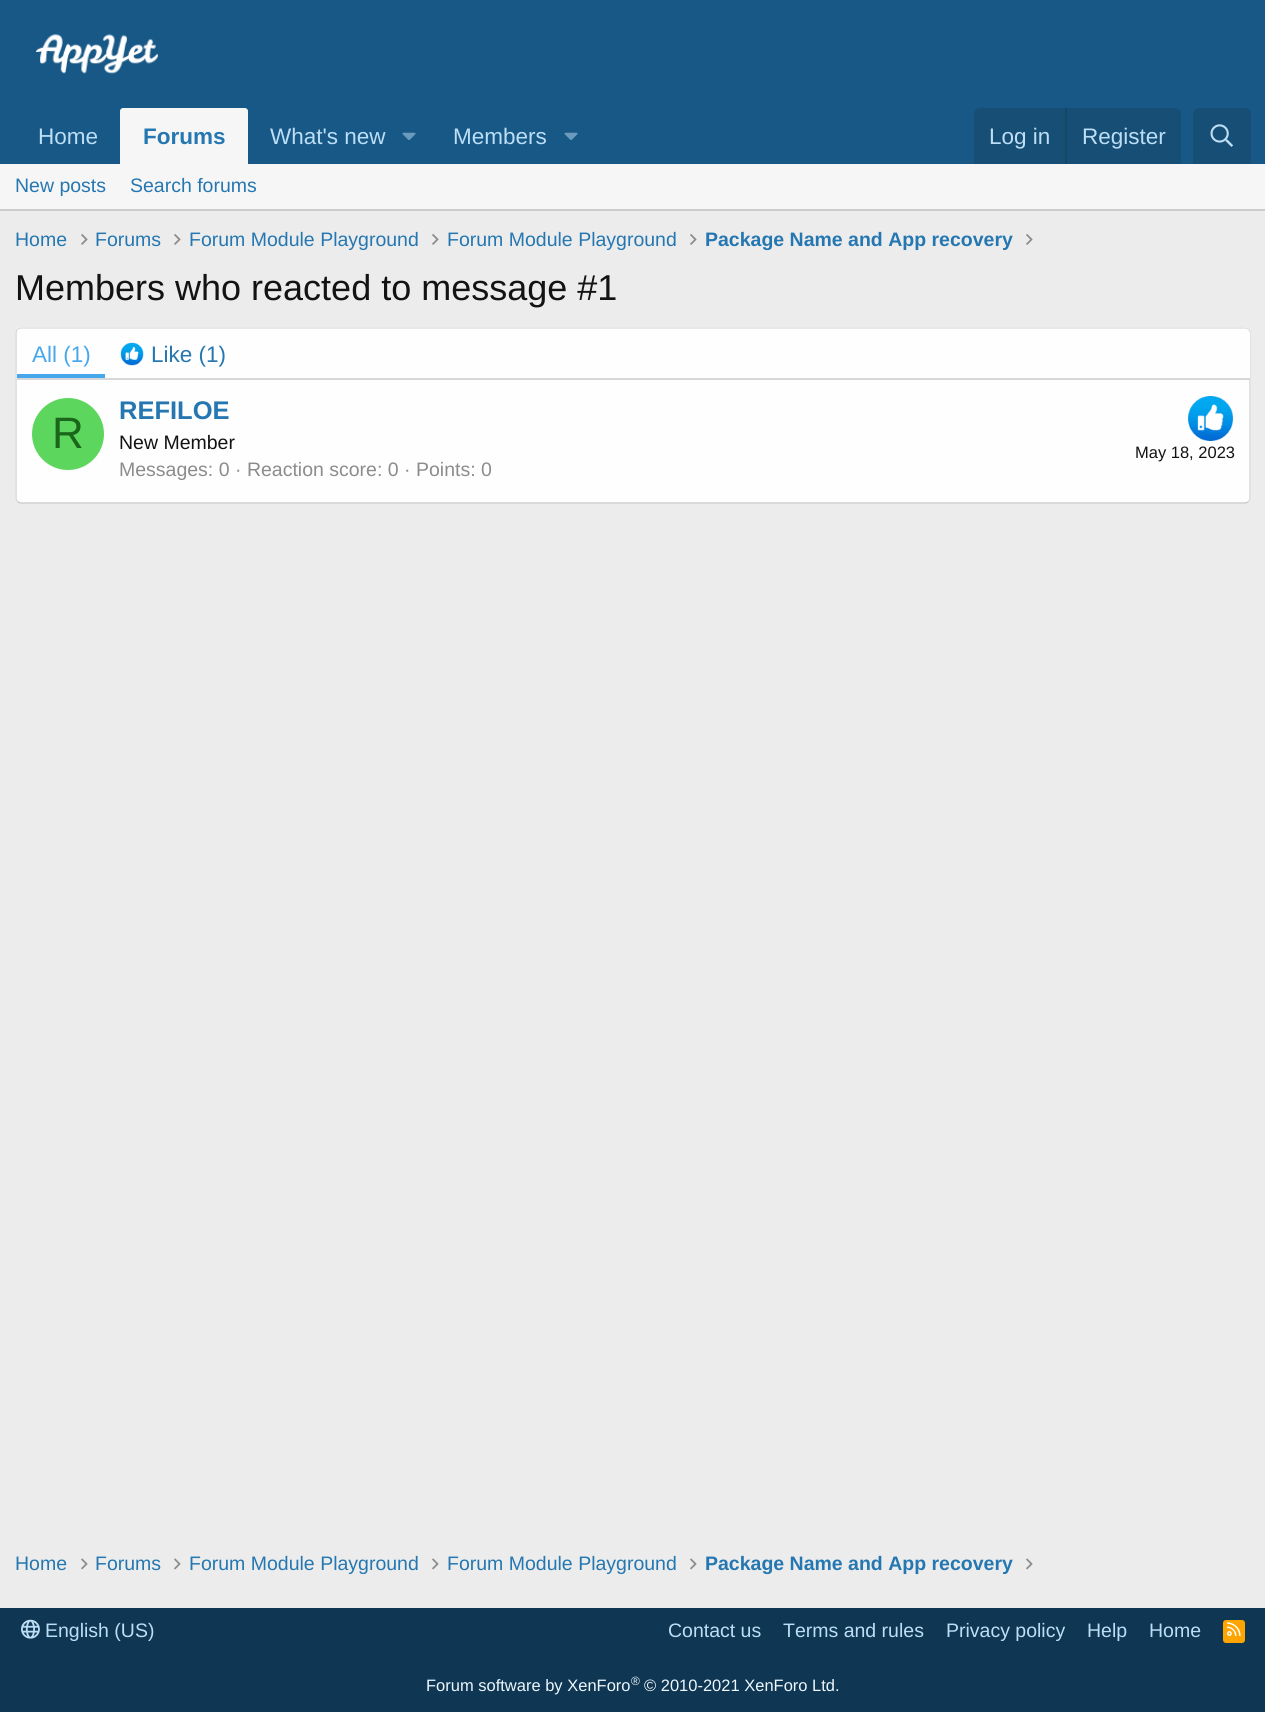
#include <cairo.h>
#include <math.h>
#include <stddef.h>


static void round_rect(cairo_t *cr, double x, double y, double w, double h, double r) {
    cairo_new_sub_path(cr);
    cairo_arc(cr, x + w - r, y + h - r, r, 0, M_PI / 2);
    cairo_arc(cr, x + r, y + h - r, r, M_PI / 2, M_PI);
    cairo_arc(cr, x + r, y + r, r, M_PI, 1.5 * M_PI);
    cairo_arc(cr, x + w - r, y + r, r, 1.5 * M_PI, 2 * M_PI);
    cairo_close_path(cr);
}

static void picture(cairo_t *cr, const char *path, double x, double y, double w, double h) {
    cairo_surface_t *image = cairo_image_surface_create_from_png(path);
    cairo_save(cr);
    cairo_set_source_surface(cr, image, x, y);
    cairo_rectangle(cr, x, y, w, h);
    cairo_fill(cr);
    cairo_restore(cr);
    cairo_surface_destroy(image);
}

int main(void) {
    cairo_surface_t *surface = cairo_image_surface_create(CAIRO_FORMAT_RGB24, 1265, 1712);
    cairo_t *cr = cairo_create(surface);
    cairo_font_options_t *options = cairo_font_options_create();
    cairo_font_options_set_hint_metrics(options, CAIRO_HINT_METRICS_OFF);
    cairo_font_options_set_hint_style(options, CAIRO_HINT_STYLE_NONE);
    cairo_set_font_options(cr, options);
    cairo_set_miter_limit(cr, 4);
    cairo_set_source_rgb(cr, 0.925, 0.925, 0.925);
    cairo_paint(cr);
    cairo_set_source_rgb(cr, 0.094, 0.345, 0.525);
    cairo_rectangle(cr, 0, 0, 1265, 164);
    cairo_fill(cr);
    picture(cr, "img1.png", 36, 34, 122, 40);
    cairo_select_font_face(cr, "Liberation Sans", CAIRO_FONT_SLANT_NORMAL, CAIRO_FONT_WEIGHT_NORMAL);
    cairo_set_font_size(cr, 22.5);
    cairo_set_source_rgb(cr, 0.737, 0.871, 0.961);
    cairo_move_to(cr, 38, 144);
    cairo_show_text(cr, "Home");
    cairo_set_source_rgb(cr, 0.961, 0.961, 0.961);
    cairo_new_path(cr);
    cairo_move_to(cr, 123, 108);
    cairo_line_to(cr, 245, 108);
    cairo_curve_to(cr, 246.5, 108, 248, 109.5, 248, 111);
    cairo_line_to(cr, 248, 164);
    cairo_line_to(cr, 120, 164);
    cairo_line_to(cr, 120, 111);
    cairo_curve_to(cr, 120, 109.5, 121.5, 108, 123, 108);
    cairo_close_path(cr);
    cairo_fill(cr);
    cairo_select_font_face(cr, "Liberation Sans", CAIRO_FONT_SLANT_NORMAL, CAIRO_FONT_WEIGHT_BOLD);
    cairo_set_source_rgb(cr, 0.145, 0.467, 0.694);
    cairo_move_to(cr, 143, 144);
    cairo_show_text(cr, "Forums");
    cairo_select_font_face(cr, "Liberation Sans", CAIRO_FONT_SLANT_NORMAL, CAIRO_FONT_WEIGHT_NORMAL);
    cairo_set_source_rgb(cr, 0.737, 0.871, 0.961);
    cairo_move_to(cr, 270, 144);
    cairo_show_text(cr, "What's new");
    picture(cr, "img2.png", 402, 132, 14, 8);
    cairo_move_to(cr, 453, 144);
    cairo_show_text(cr, "Members");
    picture(cr, "img2.png", 564, 132, 14, 8);
    cairo_set_source_rgb(cr, 0.09, 0.306, 0.459);
    cairo_new_path(cr);
    cairo_move_to(cr, 980, 108);
    cairo_line_to(cr, 1175, 108);
    cairo_curve_to(cr, 1178.5, 108, 1181, 110.5, 1181, 114);
    cairo_line_to(cr, 1181, 164);
    cairo_line_to(cr, 974, 164);
    cairo_line_to(cr, 974, 114);
    cairo_curve_to(cr, 974, 110.5, 976.5, 108, 980, 108);
    cairo_close_path(cr);
    cairo_fill(cr);
    cairo_set_source_rgb(cr, 0.737, 0.871, 0.961);
    cairo_move_to(cr, 989, 144);
    cairo_show_text(cr, "Log in");
    cairo_set_source_rgb(cr, 0.09, 0.271, 0.4);
    cairo_rectangle(cr, 1065, 108, 2, 56);
    cairo_fill(cr);
    cairo_set_source_rgb(cr, 0.737, 0.871, 0.961);
    cairo_move_to(cr, 1082, 144);
    cairo_show_text(cr, "Register");
    cairo_set_source_rgb(cr, 0.09, 0.306, 0.459);
    cairo_new_path(cr);
    cairo_move_to(cr, 1199, 108);
    cairo_line_to(cr, 1245, 108);
    cairo_curve_to(cr, 1248.5, 108, 1251, 110.5, 1251, 114);
    cairo_line_to(cr, 1251, 164);
    cairo_line_to(cr, 1193, 164);
    cairo_line_to(cr, 1193, 114);
    cairo_curve_to(cr, 1193, 110.5, 1195.5, 108, 1199, 108);
    cairo_close_path(cr);
    cairo_fill(cr);
    picture(cr, "img3.png", 1210, 124, 23, 23);
    cairo_set_source_rgb(cr, 0.961, 0.961, 0.961);
    cairo_rectangle(cr, 0, 164, 1265, 45);
    cairo_fill(cr);
    cairo_set_source_rgb(cr, 0.796, 0.796, 0.796);
    cairo_rectangle(cr, 0, 209, 1265, 2);
    cairo_fill(cr);
    cairo_set_font_size(cr, 19.5);
    cairo_set_source_rgb(cr, 0.145, 0.467, 0.694);
    cairo_move_to(cr, 15, 192);
    cairo_show_text(cr, "New posts");
    cairo_move_to(cr, 130, 192);
    cairo_show_text(cr, "Search forums");
    cairo_move_to(cr, 15, 246);
    cairo_show_text(cr, "Home");
    picture(cr, "img4.png", 81, 234, 7, 11);
    cairo_move_to(cr, 95, 246);
    cairo_show_text(cr, "Forums");
    picture(cr, "img4.png", 174, 234, 7, 11);
    cairo_move_to(cr, 189, 246);
    cairo_show_text(cr, "Forum Module Playground");
    picture(cr, "img4.png", 432, 234, 7, 11);
    cairo_move_to(cr, 447, 246);
    cairo_show_text(cr, "Forum Module Playground");
    picture(cr, "img4.png", 690, 234, 7, 11);
    cairo_select_font_face(cr, "Liberation Sans", CAIRO_FONT_SLANT_NORMAL, CAIRO_FONT_WEIGHT_BOLD);
    cairo_move_to(cr, 705, 246);
    cairo_show_text(cr, "Package Name and App recovery");
    picture(cr, "img4.png", 1026, 234, 7, 11);
    cairo_select_font_face(cr, "Liberation Sans", CAIRO_FONT_SLANT_NORMAL, CAIRO_FONT_WEIGHT_NORMAL);
    cairo_set_font_size(cr, 36);
    cairo_set_source_rgb(cr, 0.078, 0.078, 0.078);
    cairo_move_to(cr, 15, 300);
    cairo_show_text(cr, "Members who reacted to message #1");
    cairo_set_source_rgb(cr, 0.996, 0.996, 0.996);
    round_rect(cr, 15, 327, 1236, 177, 6);
    cairo_fill(cr);
    cairo_new_path(cr);
    cairo_move_to(cr, 17.5, 329.5);
    cairo_curve_to(cr, 18.5, 328.5, 19.5, 328, 21, 328);
    cairo_line_to(cr, 1245, 328);
    cairo_curve_to(cr, 1246.5, 328, 1247.5, 328.5, 1248.5, 329.5);
    cairo_set_source_rgb(cr, 0.875, 0.875, 0.875);
    cairo_set_line_width(cr, 1.5);
    cairo_stroke(cr);
    cairo_new_path(cr);
    cairo_move_to(cr, 1248.5, 329.5);
    cairo_curve_to(cr, 1249.5, 330.5, 1250, 331.5, 1250, 333);
    cairo_line_to(cr, 1250, 498);
    cairo_curve_to(cr, 1250, 499.5, 1249.5, 500.5, 1248.5, 501.5);
    cairo_set_source_rgb(cr, 0.847, 0.847, 0.847);
    cairo_stroke(cr);
    cairo_new_path(cr);
    cairo_move_to(cr, 1248.5, 501.5);
    cairo_curve_to(cr, 1247.5, 502.5, 1246.5, 503, 1245, 503);
    cairo_line_to(cr, 21, 503);
    cairo_curve_to(cr, 19.5, 503, 18.5, 502.5, 17.5, 501.5);
    cairo_set_source_rgb(cr, 0.796, 0.796, 0.796);
    cairo_stroke(cr);
    cairo_new_path(cr);
    cairo_move_to(cr, 17.5, 501.5);
    cairo_curve_to(cr, 16.5, 500.5, 16, 499.5, 16, 498);
    cairo_line_to(cr, 16, 333);
    cairo_curve_to(cr, 16, 331.5, 16.5, 330.5, 17.5, 329.5);
    cairo_set_source_rgb(cr, 0.847, 0.847, 0.847);
    cairo_stroke(cr);
    cairo_set_source_rgb(cr, 0.996, 0.996, 0.996);
    cairo_new_path(cr);
    cairo_move_to(cr, 22, 329);
    cairo_line_to(cr, 1245, 329);
    cairo_curve_to(cr, 1248, 329, 1250, 331, 1250, 334);
    cairo_line_to(cr, 1250, 380);
    cairo_line_to(cr, 17, 380);
    cairo_line_to(cr, 17, 334);
    cairo_curve_to(cr, 17, 331, 19, 329, 22, 329);
    cairo_close_path(cr);
    cairo_fill(cr);
    cairo_set_source_rgb(cr, 0.847, 0.847, 0.847);
    cairo_rectangle(cr, 17, 378, 1233, 2);
    cairo_fill(cr);
    cairo_set_source_rgb(cr, 0.278, 0.655, 0.922);
    cairo_rectangle(cr, 17, 374, 88, 4);
    cairo_fill(cr);
    cairo_set_font_size(cr, 22.5);
    cairo_move_to(cr, 32, 362);
    cairo_show_text(cr, "All (1)");
    picture(cr, "img5.png", 120, 342, 24, 24);
    cairo_set_source_rgb(cr, 0.145, 0.467, 0.694);
    cairo_move_to(cr, 151, 362);
    cairo_show_text(cr, "Like (1)");
    cairo_set_source_rgb(cr, 0.361, 0.839, 0.361);
    cairo_new_path(cr);
    cairo_arc(cr, 68, 434, 36, 0, 2 * M_PI);
    cairo_fill(cr);
    cairo_set_font_size(cr, 44);
    cairo_set_source_rgb(cr, 0.102, 0.4, 0.102);
    cairo_move_to(cr, 52, 448);
    cairo_show_text(cr, "R");
    cairo_select_font_face(cr, "Liberation Sans", CAIRO_FONT_SLANT_NORMAL, CAIRO_FONT_WEIGHT_BOLD);
    cairo_set_font_size(cr, 25.5);
    cairo_set_source_rgb(cr, 0.145, 0.467, 0.694);
    cairo_move_to(cr, 119, 419);
    cairo_show_text(cr, "REFILOE");
    cairo_select_font_face(cr, "Liberation Sans", CAIRO_FONT_SLANT_NORMAL, CAIRO_FONT_WEIGHT_NORMAL);
    cairo_set_font_size(cr, 19.5);
    cairo_set_source_rgb(cr, 0.078, 0.078, 0.078);
    cairo_move_to(cr, 119, 449);
    cairo_show_text(cr, "New Member");
    picture(cr, "img6.png", 1188, 396, 45, 45);
    cairo_set_font_size(cr, 16.5);
    cairo_move_to(cr, 1135, 458);
    cairo_show_text(cr, "May 18, 2023");
    cairo_set_font_size(cr, 19.5);
    cairo_set_source_rgb(cr, 0.549, 0.549, 0.549);
    cairo_move_to(cr, 119, 476);
    cairo_show_text(cr, "Messages: 0 · Reaction score: 0 · Points: 0");
    cairo_set_source_rgb(cr, 0.145, 0.467, 0.694);
    cairo_move_to(cr, 15, 1570);
    cairo_show_text(cr, "Home");
    picture(cr, "img7.png", 81, 1558, 7, 12);
    cairo_move_to(cr, 95, 1570);
    cairo_show_text(cr, "Forums");
    picture(cr, "img7.png", 174, 1558, 7, 12);
    cairo_move_to(cr, 189, 1570);
    cairo_show_text(cr, "Forum Module Playground");
    picture(cr, "img7.png", 432, 1558, 7, 12);
    cairo_move_to(cr, 447, 1570);
    cairo_show_text(cr, "Forum Module Playground");
    picture(cr, "img7.png", 690, 1558, 7, 12);
    cairo_select_font_face(cr, "Liberation Sans", CAIRO_FONT_SLANT_NORMAL, CAIRO_FONT_WEIGHT_BOLD);
    cairo_move_to(cr, 705, 1570);
    cairo_show_text(cr, "Package Name and App recovery");
    picture(cr, "img7.png", 1026, 1558, 7, 12);
    cairo_set_source_rgb(cr, 0.059, 0.212, 0.322);
    cairo_rectangle(cr, 0, 1608, 1265, 104);
    cairo_fill(cr);
    picture(cr, "img8.png", 21, 1619, 19, 20);
    cairo_select_font_face(cr, "Liberation Sans", CAIRO_FONT_SLANT_NORMAL, CAIRO_FONT_WEIGHT_NORMAL);
    cairo_set_source_rgb(cr, 0.737, 0.871, 0.961);
    cairo_move_to(cr, 45, 1637);
    cairo_show_text(cr, "English (US)");
    cairo_move_to(cr, 668, 1637);
    cairo_show_text(cr, "Contact us");
    cairo_move_to(cr, 783, 1637);
    cairo_show_text(cr, "Terms and rules");
    cairo_move_to(cr, 946, 1637);
    cairo_show_text(cr, "Privacy policy");
    cairo_move_to(cr, 1087, 1637);
    cairo_show_text(cr, "Help");
    cairo_move_to(cr, 1149, 1637);
    cairo_show_text(cr, "Home");
    cairo_set_source_rgb(cr, 1, 0.647, 0);
    round_rect(cr, 1223, 1620, 22, 23, 3);
    cairo_fill(cr);
    picture(cr, "img9.png", 1227, 1622, 14, 14);
    cairo_set_font_size(cr, 16.5);
    cairo_set_source_rgb(cr, 0.929, 0.965, 0.992);
    cairo_move_to(cr, 426, 1691);
    cairo_show_text(cr, "Forum software by XenForo");
    cairo_set_font_size(cr, 12);
    cairo_move_to(cr, 631, 1685);
    cairo_show_text(cr, "®");
    cairo_set_font_size(cr, 16.5);
    cairo_move_to(cr, 644, 1691);
    cairo_show_text(cr, "© 2010-2021 XenForo Ltd.");
    cairo_surface_write_to_png(surface, "page.png");
    cairo_font_options_destroy(options);
    cairo_destroy(cr);
    cairo_surface_destroy(surface);
    return 0;
}
